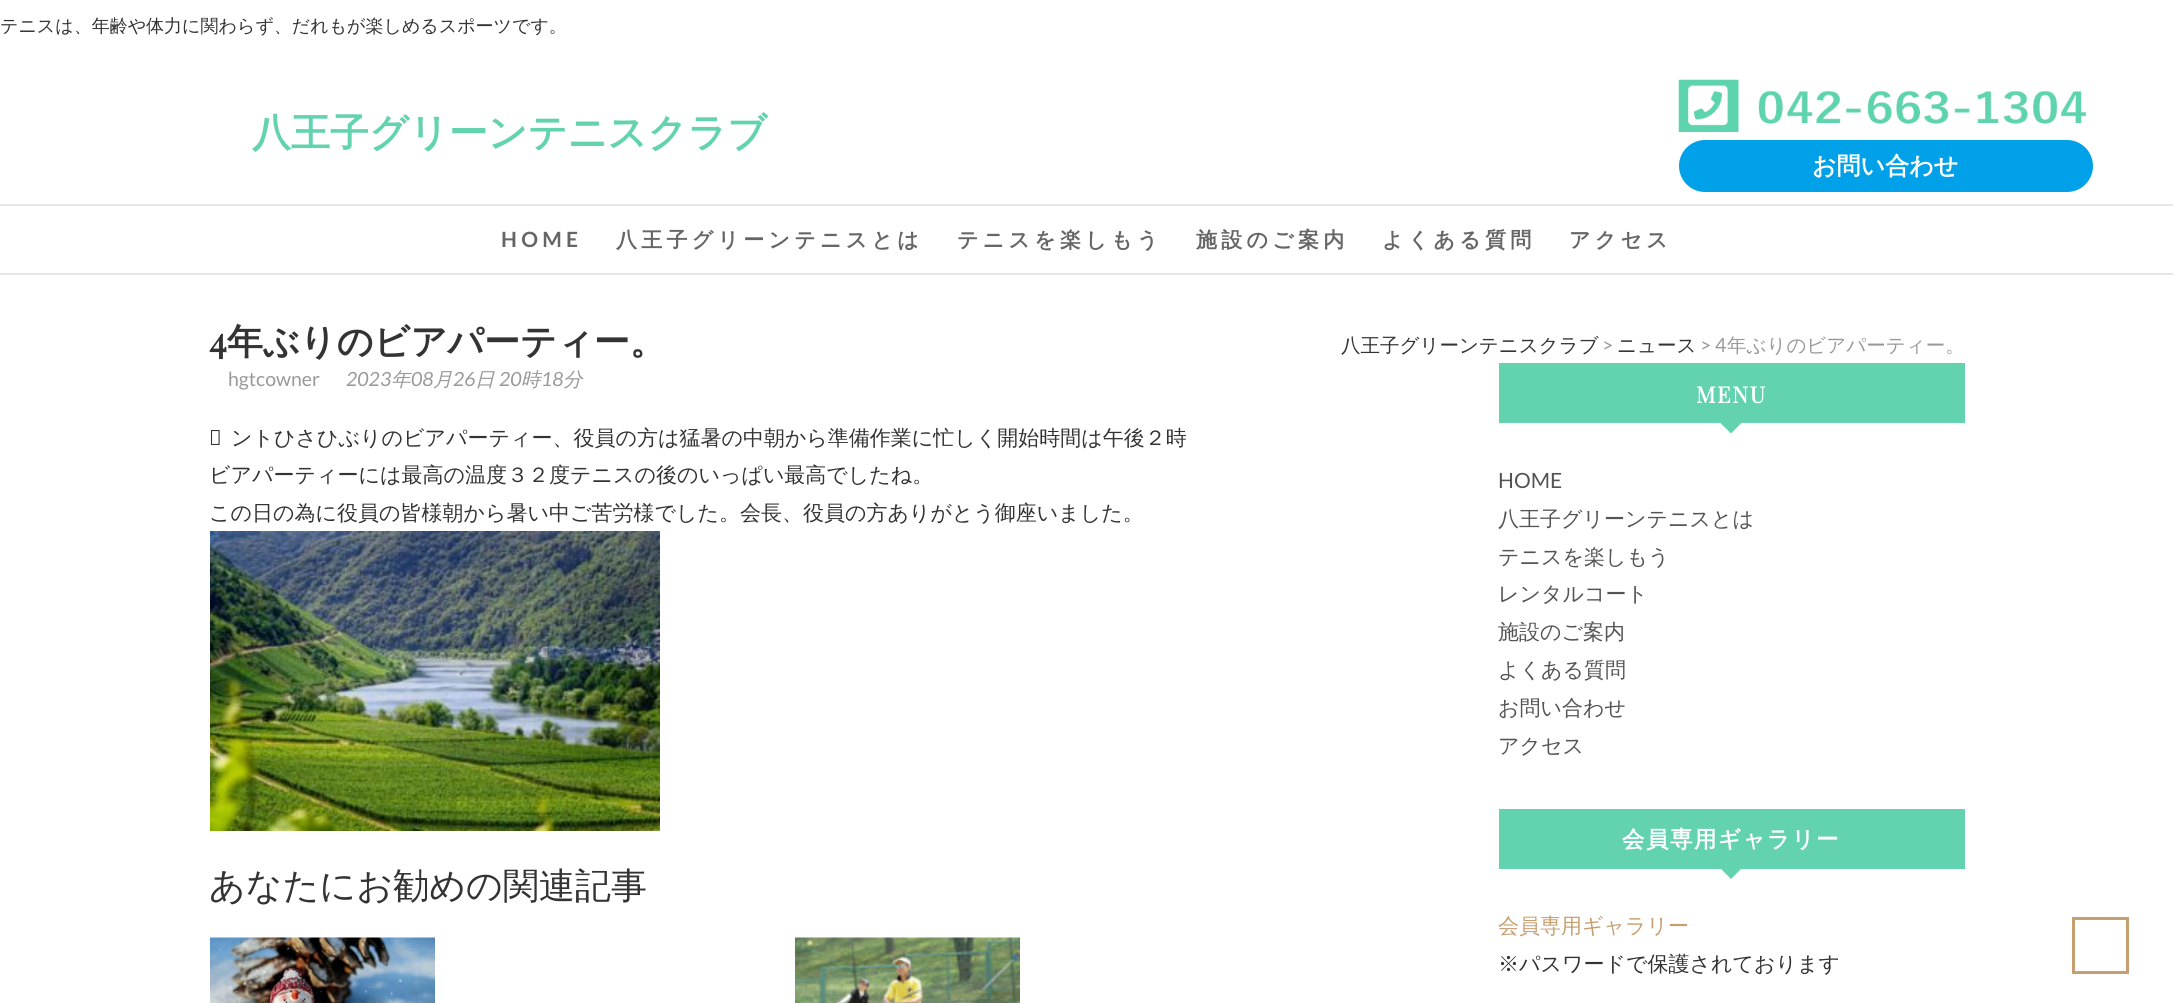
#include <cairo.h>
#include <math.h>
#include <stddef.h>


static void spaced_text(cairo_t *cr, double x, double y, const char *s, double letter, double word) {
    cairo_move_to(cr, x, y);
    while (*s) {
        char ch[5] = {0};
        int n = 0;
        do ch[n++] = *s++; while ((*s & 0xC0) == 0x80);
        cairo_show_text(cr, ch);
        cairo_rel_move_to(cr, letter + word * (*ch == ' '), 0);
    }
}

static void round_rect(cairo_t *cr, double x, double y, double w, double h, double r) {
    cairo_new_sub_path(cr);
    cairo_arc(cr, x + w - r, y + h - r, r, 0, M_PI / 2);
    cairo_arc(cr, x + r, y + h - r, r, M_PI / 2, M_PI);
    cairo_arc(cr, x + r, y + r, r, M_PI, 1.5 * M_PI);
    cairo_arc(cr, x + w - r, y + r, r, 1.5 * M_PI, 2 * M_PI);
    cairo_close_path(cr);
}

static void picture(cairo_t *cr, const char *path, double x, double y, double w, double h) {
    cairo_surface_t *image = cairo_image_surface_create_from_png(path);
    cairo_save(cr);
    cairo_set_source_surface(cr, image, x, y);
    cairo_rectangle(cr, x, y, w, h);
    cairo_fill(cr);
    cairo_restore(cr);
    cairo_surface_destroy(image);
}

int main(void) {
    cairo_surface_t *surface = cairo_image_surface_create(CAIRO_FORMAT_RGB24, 2173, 1003);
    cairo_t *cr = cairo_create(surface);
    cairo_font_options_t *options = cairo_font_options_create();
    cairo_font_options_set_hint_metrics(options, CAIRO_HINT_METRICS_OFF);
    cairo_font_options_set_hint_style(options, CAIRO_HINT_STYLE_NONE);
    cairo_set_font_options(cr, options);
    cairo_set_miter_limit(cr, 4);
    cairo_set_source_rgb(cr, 1, 1, 1);
    cairo_paint(cr);
    cairo_select_font_face(cr, "WenQuanYi Zen Hei Medium", CAIRO_FONT_SLANT_NORMAL, CAIRO_FONT_WEIGHT_NORMAL);
    cairo_set_font_size(cr, 18);
    cairo_set_source_rgb(cr, 0.2, 0.2, 0.2);
    cairo_move_to(cr, 0, 32);
    cairo_show_text(cr, "テニスは、年齢や体力に関わらず、だれもが楽しめるスポーツです。");
    cairo_set_source_rgb(cr, 0.902, 0.902, 0.902);
    cairo_rectangle(cr, 0, 204, 2173, 2);
    cairo_fill(cr);
    cairo_select_font_face(cr, "WenQuanYi Zen Hei", CAIRO_FONT_SLANT_NORMAL, CAIRO_FONT_WEIGHT_BOLD);
    cairo_set_font_size(cr, 39);
    cairo_set_source_rgb(cr, 0.384, 0.824, 0.686);
    cairo_move_to(cr, 252, 146);
    cairo_show_text(cr, "八王子グリーンテニスクラブ");
    cairo_set_source_rgb(cr, 0.902, 0.902, 0.902);
    cairo_rectangle(cr, 0, 273, 2173, 2);
    cairo_fill(cr);
    cairo_select_font_face(cr, "Lato", CAIRO_FONT_SLANT_NORMAL, CAIRO_FONT_WEIGHT_BOLD);
    cairo_set_font_size(cr, 21);
    cairo_set_source_rgb(cr, 0.4, 0.4, 0.4);
    spaced_text(cr, 501, 247, "HOME", 4.25, 0);
    cairo_select_font_face(cr, "WenQuanYi Zen Hei", CAIRO_FONT_SLANT_NORMAL, CAIRO_FONT_WEIGHT_BOLD);
    spaced_text(cr, 616, 247, "八王子グリーンテニスとは", 4.25, 0);
    spaced_text(cr, 957, 247, "テニスを楽しもう", 4.25, 0);
    spaced_text(cr, 1196, 247, "施設のご案内", 4.25, 0);
    spaced_text(cr, 1382, 247, "よくある質問", 4.25, 0);
    spaced_text(cr, 1569, 247, "アクセス", 4.25, 0);
    cairo_select_font_face(cr, "Playfair Display", CAIRO_FONT_SLANT_NORMAL, CAIRO_FONT_WEIGHT_BOLD);
    cairo_set_font_size(cr, 36);
    cairo_set_source_rgb(cr, 0.2, 0.2, 0.2);
    cairo_move_to(cr, 209, 354);
    cairo_show_text(cr, "4");
    cairo_select_font_face(cr, "WenQuanYi Zen Hei", CAIRO_FONT_SLANT_NORMAL, CAIRO_FONT_WEIGHT_BOLD);
    cairo_move_to(cr, 227, 354);
    cairo_show_text(cr, "年ぶりのビアパーティー。");
    cairo_select_font_face(cr, "WenQuanYi Zen Hei Medium", CAIRO_FONT_SLANT_NORMAL, CAIRO_FONT_WEIGHT_NORMAL);
    cairo_set_font_size(cr, 19.5);
    cairo_move_to(cr, 1341, 352);
    cairo_show_text(cr, "八王子グリーンテニスクラブ");
    cairo_select_font_face(cr, "Lato", CAIRO_FONT_SLANT_NORMAL, CAIRO_FONT_WEIGHT_NORMAL);
    cairo_set_source_rgb(cr, 0.6, 0.6, 0.6);
    cairo_move_to(cr, 1602, 352);
    cairo_show_text(cr, ">");
    cairo_select_font_face(cr, "WenQuanYi Zen Hei Medium", CAIRO_FONT_SLANT_NORMAL, CAIRO_FONT_WEIGHT_NORMAL);
    cairo_set_source_rgb(cr, 0.2, 0.2, 0.2);
    cairo_move_to(cr, 1617, 352);
    cairo_show_text(cr, "ニュース");
    cairo_select_font_face(cr, "Lato", CAIRO_FONT_SLANT_NORMAL, CAIRO_FONT_WEIGHT_NORMAL);
    cairo_set_source_rgb(cr, 0.6, 0.6, 0.6);
    cairo_move_to(cr, 1700, 352);
    cairo_show_text(cr, "> 4");
    cairo_select_font_face(cr, "WenQuanYi Zen Hei Medium", CAIRO_FONT_SLANT_NORMAL, CAIRO_FONT_WEIGHT_NORMAL);
    cairo_move_to(cr, 1727, 352);
    cairo_show_text(cr, "年ぶりのビアパーティー。");
    cairo_select_font_face(cr, "Lato", CAIRO_FONT_SLANT_NORMAL, CAIRO_FONT_WEIGHT_NORMAL);
    cairo_move_to(cr, 228, 386);
    cairo_show_text(cr, "hgtcowner");
    cairo_select_font_face(cr, "Lato", CAIRO_FONT_SLANT_ITALIC, CAIRO_FONT_WEIGHT_NORMAL);
    cairo_move_to(cr, 346, 386);
    cairo_show_text(cr, "2023");
    cairo_select_font_face(cr, "WenQuanYi Zen Hei Medium", CAIRO_FONT_SLANT_ITALIC, CAIRO_FONT_WEIGHT_NORMAL);
    cairo_move_to(cr, 391, 386);
    cairo_show_text(cr, "年");
    cairo_select_font_face(cr, "Lato", CAIRO_FONT_SLANT_ITALIC, CAIRO_FONT_WEIGHT_NORMAL);
    cairo_move_to(cr, 411, 386);
    cairo_show_text(cr, "08");
    cairo_select_font_face(cr, "WenQuanYi Zen Hei Medium", CAIRO_FONT_SLANT_ITALIC, CAIRO_FONT_WEIGHT_NORMAL);
    cairo_move_to(cr, 433, 386);
    cairo_show_text(cr, "月");
    cairo_select_font_face(cr, "Lato", CAIRO_FONT_SLANT_ITALIC, CAIRO_FONT_WEIGHT_NORMAL);
    cairo_move_to(cr, 453, 386);
    cairo_show_text(cr, "26");
    cairo_select_font_face(cr, "WenQuanYi Zen Hei Medium", CAIRO_FONT_SLANT_ITALIC, CAIRO_FONT_WEIGHT_NORMAL);
    cairo_move_to(cr, 475, 386);
    cairo_show_text(cr, "日");
    cairo_select_font_face(cr, "Lato", CAIRO_FONT_SLANT_ITALIC, CAIRO_FONT_WEIGHT_NORMAL);
    cairo_move_to(cr, 499, 386);
    cairo_show_text(cr, "20");
    cairo_select_font_face(cr, "WenQuanYi Zen Hei Medium", CAIRO_FONT_SLANT_ITALIC, CAIRO_FONT_WEIGHT_NORMAL);
    cairo_move_to(cr, 521, 386);
    cairo_show_text(cr, "時");
    cairo_select_font_face(cr, "Lato", CAIRO_FONT_SLANT_ITALIC, CAIRO_FONT_WEIGHT_NORMAL);
    cairo_move_to(cr, 541, 386);
    cairo_show_text(cr, "18");
    cairo_select_font_face(cr, "WenQuanYi Zen Hei Medium", CAIRO_FONT_SLANT_ITALIC, CAIRO_FONT_WEIGHT_NORMAL);
    cairo_move_to(cr, 563, 386);
    cairo_show_text(cr, "分");
    cairo_select_font_face(cr, "Noto Sans", CAIRO_FONT_SLANT_NORMAL, CAIRO_FONT_WEIGHT_NORMAL);
    cairo_set_font_size(cr, 21);
    cairo_set_source_rgb(cr, 0.2, 0.2, 0.2);
    cairo_move_to(cr, 209, 445);
    cairo_show_text(cr, "ホ");
    cairo_select_font_face(cr, "WenQuanYi Zen Hei Medium", CAIRO_FONT_SLANT_NORMAL, CAIRO_FONT_WEIGHT_NORMAL);
    cairo_move_to(cr, 231, 445);
    cairo_show_text(cr, "ントひさひぶりのビアパーティー、役員の方は猛暑の中朝から準備作業に忙しく開始時間は午後２時");
    cairo_move_to(cr, 209, 482);
    cairo_show_text(cr, "ビアパーティーには最高の温度３２度テニスの後のいっぱい最高でしたね。");
    cairo_move_to(cr, 209, 520);
    cairo_show_text(cr, "この日の為に役員の皆様朝から暑い中ご苦労様でした。会長、役員の方ありがとう御座いました。");
    picture(cr, "img1.png", 210, 531, 450, 300);
    cairo_set_font_size(cr, 36);
    cairo_move_to(cr, 209, 898);
    cairo_show_text(cr, "あなたにお勧めの関連記事");
    picture(cr, "img2.png", 210, 937, 225, 66);
    picture(cr, "img3.png", 795, 937, 225, 66);
    cairo_set_source_rgb(cr, 0.384, 0.824, 0.686);
    cairo_rectangle(cr, 1499, 363, 466, 60);
    cairo_fill(cr);
    cairo_select_font_face(cr, "Playfair Display", CAIRO_FONT_SLANT_NORMAL, CAIRO_FONT_WEIGHT_BOLD);
    cairo_set_font_size(cr, 22.5);
    cairo_set_source_rgb(cr, 1, 1, 1);
    spaced_text(cr, 1696, 403, "MENU", 1.5, 0);
    cairo_set_source_rgb(cr, 0.384, 0.824, 0.686);
    cairo_new_path(cr);
    cairo_move_to(cr, 1720.5, 423);
    cairo_line_to(cr, 1741.5, 423);
    cairo_line_to(cr, 1731, 433.5);
    cairo_close_path(cr);
    cairo_fill(cr);
    cairo_select_font_face(cr, "Lato", CAIRO_FONT_SLANT_NORMAL, CAIRO_FONT_WEIGHT_NORMAL);
    cairo_set_font_size(cr, 21);
    cairo_set_source_rgb(cr, 0.329, 0.329, 0.329);
    cairo_move_to(cr, 1498, 488);
    cairo_show_text(cr, "HOME");
    cairo_select_font_face(cr, "WenQuanYi Zen Hei Medium", CAIRO_FONT_SLANT_NORMAL, CAIRO_FONT_WEIGHT_NORMAL);
    cairo_move_to(cr, 1498, 526);
    cairo_show_text(cr, "八王子グリーンテニスとは");
    cairo_move_to(cr, 1498, 564);
    cairo_show_text(cr, "テニスを楽しもう");
    cairo_move_to(cr, 1498, 601);
    cairo_show_text(cr, "レンタルコート");
    cairo_move_to(cr, 1498, 639);
    cairo_show_text(cr, "施設のご案内");
    cairo_move_to(cr, 1498, 677);
    cairo_show_text(cr, "よくある質問");
    cairo_move_to(cr, 1498, 715);
    cairo_show_text(cr, "お問い合わせ");
    cairo_move_to(cr, 1498, 753);
    cairo_show_text(cr, "アクセス");
    cairo_set_source_rgb(cr, 0.384, 0.824, 0.686);
    cairo_rectangle(cr, 1499, 809, 466, 60);
    cairo_fill(cr);
    cairo_select_font_face(cr, "WenQuanYi Zen Hei", CAIRO_FONT_SLANT_NORMAL, CAIRO_FONT_WEIGHT_BOLD);
    cairo_set_font_size(cr, 22.5);
    cairo_set_source_rgb(cr, 1, 1, 1);
    spaced_text(cr, 1622, 847, "会員専用ギャラリー", 1.5, 0);
    cairo_set_source_rgb(cr, 0.384, 0.824, 0.686);
    cairo_new_path(cr);
    cairo_move_to(cr, 1720.5, 868.5);
    cairo_line_to(cr, 1741.5, 868.5);
    cairo_line_to(cr, 1731, 879);
    cairo_close_path(cr);
    cairo_fill(cr);
    cairo_select_font_face(cr, "WenQuanYi Zen Hei Medium", CAIRO_FONT_SLANT_NORMAL, CAIRO_FONT_WEIGHT_NORMAL);
    cairo_set_font_size(cr, 21);
    cairo_set_source_rgb(cr, 0.776, 0.624, 0.439);
    cairo_move_to(cr, 1498, 933);
    cairo_show_text(cr, "会員専用ギャラリー");
    cairo_set_source_rgb(cr, 0.2, 0.2, 0.2);
    cairo_move_to(cr, 1498, 971);
    cairo_show_text(cr, "※パスワードで保護されております");
    cairo_rectangle(cr, 2073.5, 918.5, 54, 54);
    cairo_set_source_rgb(cr, 0.776, 0.624, 0.439);
    cairo_set_line_width(cr, 3);
    cairo_stroke(cr);
    picture(cr, "img4.png", 1678, 79, 409, 53);
    cairo_set_source_rgb(cr, 0, 0.631, 0.914);
    round_rect(cr, 1679, 140, 414, 52, 26);
    cairo_fill(cr);
    cairo_select_font_face(cr, "WenQuanYi Zen Hei", CAIRO_FONT_SLANT_NORMAL, CAIRO_FONT_WEIGHT_BOLD);
    cairo_set_font_size(cr, 24);
    cairo_set_source_rgb(cr, 1, 1, 1);
    cairo_move_to(cr, 1812, 174);
    cairo_show_text(cr, "お問い合わせ");
    cairo_surface_write_to_png(surface, "page.png");
    cairo_font_options_destroy(options);
    cairo_destroy(cr);
    cairo_surface_destroy(surface);
    return 0;
}
